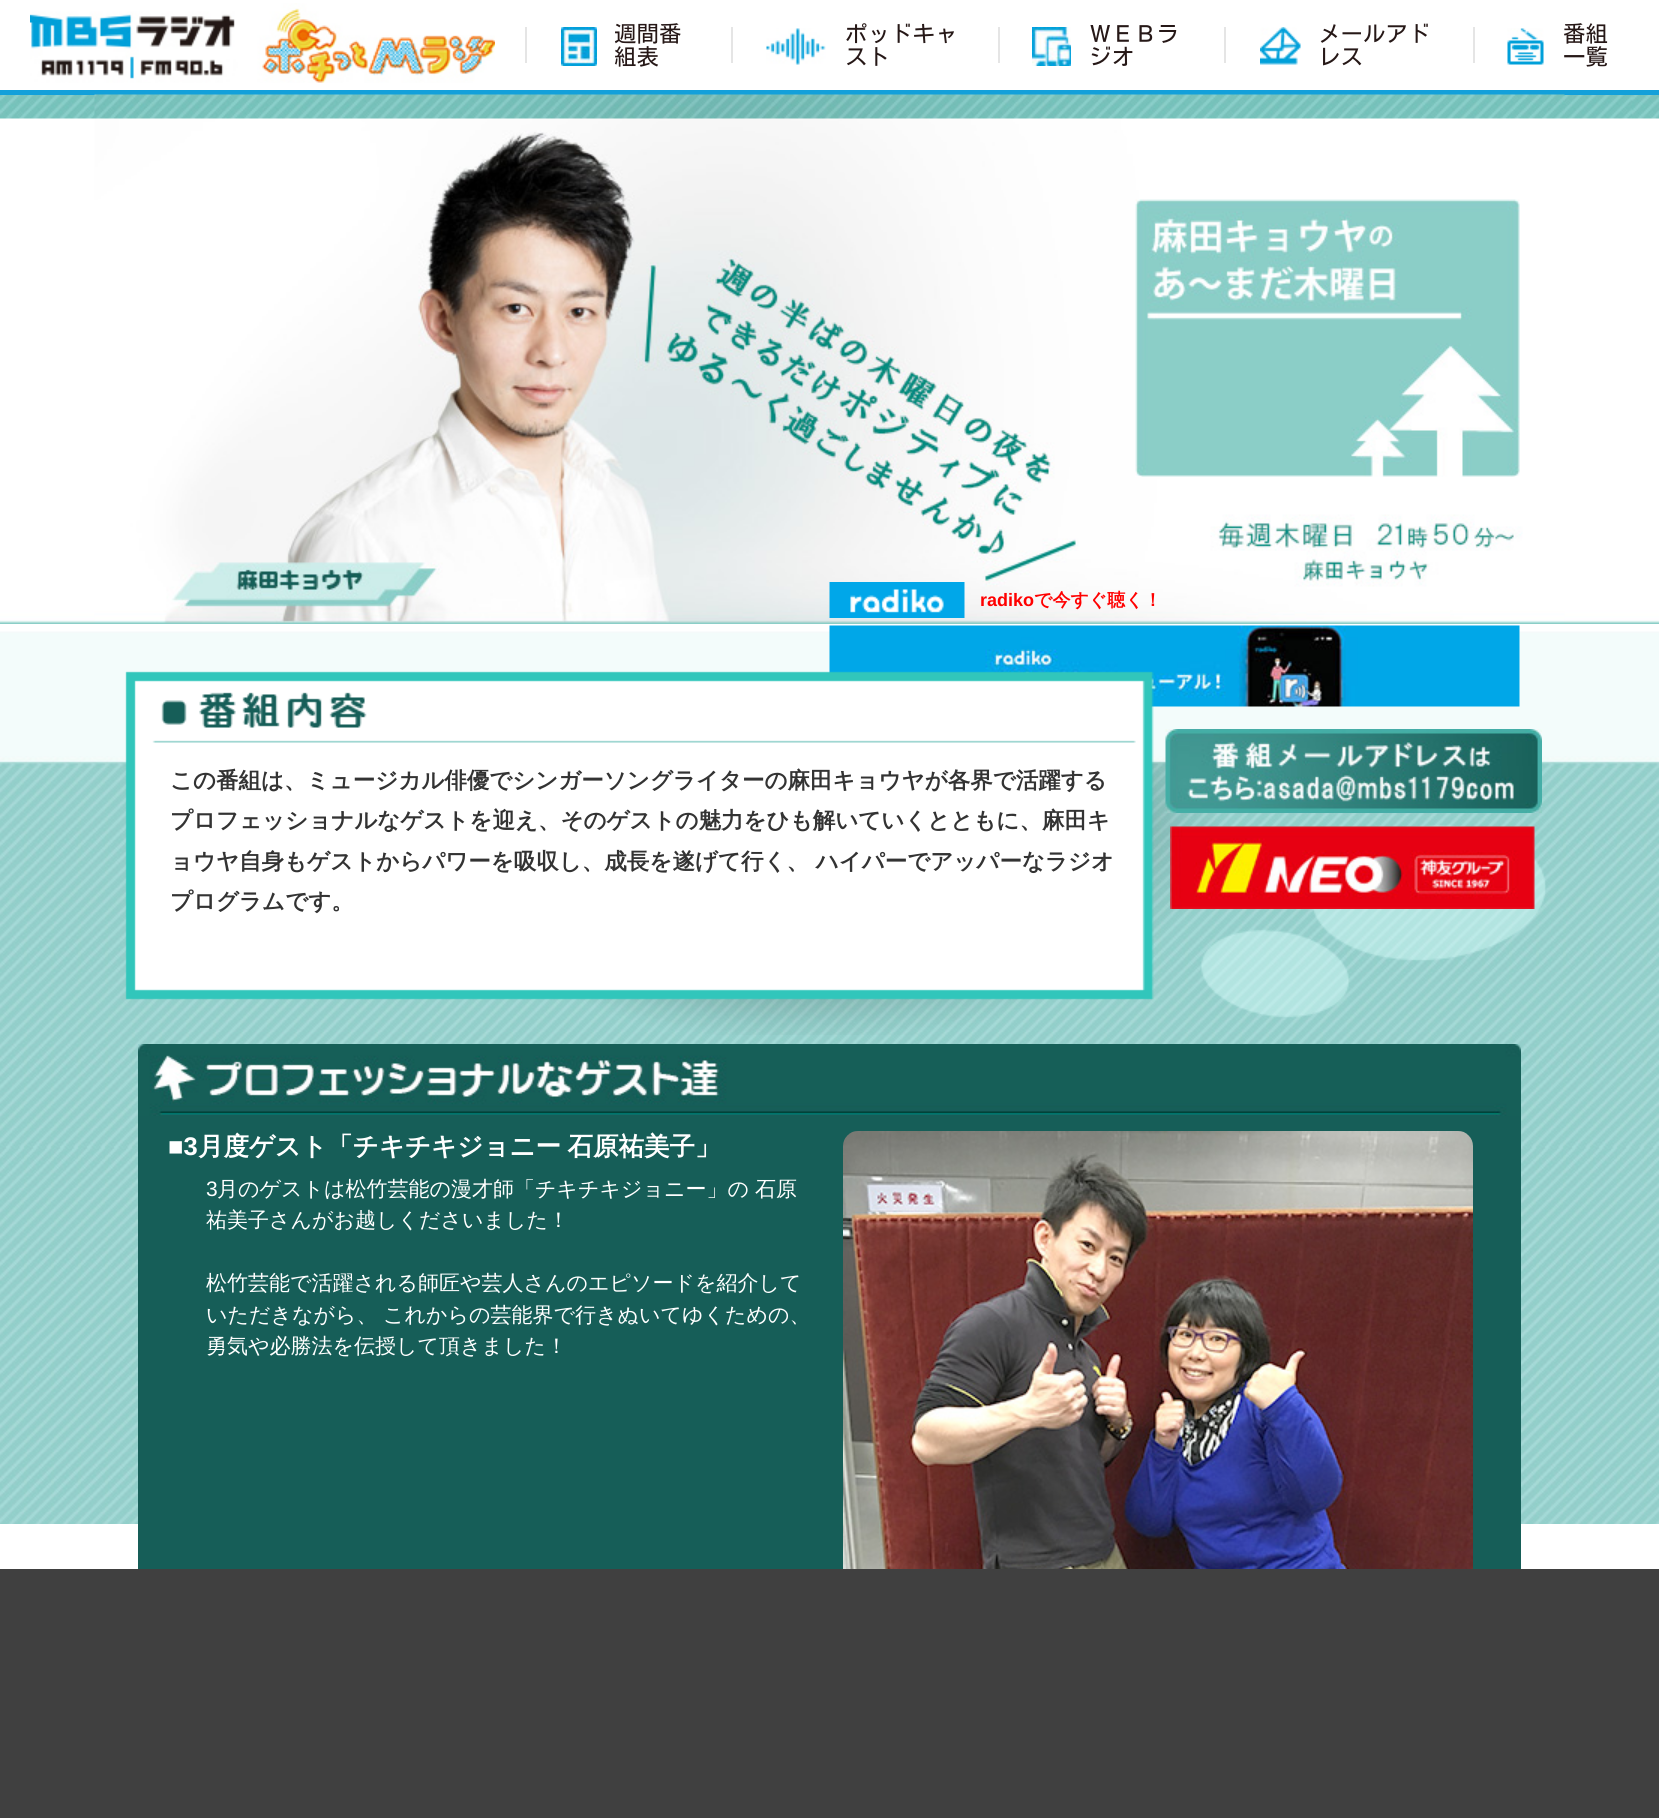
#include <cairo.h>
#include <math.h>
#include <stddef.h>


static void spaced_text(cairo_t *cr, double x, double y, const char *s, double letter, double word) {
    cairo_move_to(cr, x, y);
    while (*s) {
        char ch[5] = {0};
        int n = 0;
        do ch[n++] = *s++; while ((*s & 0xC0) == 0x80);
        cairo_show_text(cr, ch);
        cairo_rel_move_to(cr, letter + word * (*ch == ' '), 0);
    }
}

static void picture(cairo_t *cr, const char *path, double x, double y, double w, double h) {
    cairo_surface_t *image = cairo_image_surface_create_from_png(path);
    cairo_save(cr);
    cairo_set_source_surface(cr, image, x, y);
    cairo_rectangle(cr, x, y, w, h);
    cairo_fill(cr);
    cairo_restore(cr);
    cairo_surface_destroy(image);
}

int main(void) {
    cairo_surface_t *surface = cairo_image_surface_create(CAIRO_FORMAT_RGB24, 1659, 1818);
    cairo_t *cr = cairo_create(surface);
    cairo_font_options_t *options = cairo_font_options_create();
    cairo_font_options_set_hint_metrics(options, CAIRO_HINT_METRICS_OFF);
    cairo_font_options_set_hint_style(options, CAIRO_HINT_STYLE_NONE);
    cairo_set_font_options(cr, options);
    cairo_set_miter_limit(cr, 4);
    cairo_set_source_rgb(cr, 1, 1, 1);
    cairo_paint(cr);
    cairo_set_source_rgb(cr, 0.075, 0.627, 0.855);
    cairo_rectangle(cr, 0, 90, 1659, 5);
    cairo_fill(cr);
    picture(cr, "img1.png", 30, 3, 465, 80);
    cairo_set_source_rgb(cr, 0.898, 0.898, 0.898);
    cairo_rectangle(cr, 525, 27, 2, 36);
    cairo_fill(cr);
    picture(cr, "img2.png", 561, 27, 36, 39);
    cairo_select_font_face(cr, "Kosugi", CAIRO_FONT_SLANT_NORMAL, CAIRO_FONT_WEIGHT_NORMAL);
    cairo_set_font_size(cr, 22.5);
    cairo_set_source_rgb(cr, 0.149, 0.094, 0.09);
    cairo_move_to(cr, 614, 42);
    cairo_show_text(cr, "週間番");
    cairo_move_to(cr, 614, 65);
    cairo_show_text(cr, "組表");
    cairo_set_source_rgb(cr, 0.898, 0.898, 0.898);
    cairo_rectangle(cr, 731, 27, 2, 36);
    cairo_fill(cr);
    picture(cr, "img3.png", 766, 28, 60, 37);
    cairo_set_source_rgb(cr, 0.149, 0.094, 0.09);
    cairo_move_to(cr, 845, 42);
    cairo_show_text(cr, "ポッドキャ");
    cairo_move_to(cr, 845, 65);
    cairo_show_text(cr, "スト");
    cairo_set_source_rgb(cr, 0.898, 0.898, 0.898);
    cairo_rectangle(cr, 998, 27, 2, 36);
    cairo_fill(cr);
    picture(cr, "img4.png", 1032, 27, 39, 39);
    cairo_set_source_rgb(cr, 0.149, 0.094, 0.09);
    cairo_move_to(cr, 1089, 42);
    cairo_show_text(cr, "ＷＥＢラ");
    cairo_move_to(cr, 1089, 65);
    cairo_show_text(cr, "ジオ");
    cairo_set_source_rgb(cr, 0.898, 0.898, 0.898);
    cairo_rectangle(cr, 1224, 27, 2, 36);
    cairo_fill(cr);
    picture(cr, "img5.png", 1260, 27, 41, 38);
    cairo_set_source_rgb(cr, 0.149, 0.094, 0.09);
    cairo_move_to(cr, 1318, 42);
    cairo_show_text(cr, "メールアド");
    cairo_move_to(cr, 1318, 65);
    cairo_show_text(cr, "レス");
    cairo_set_source_rgb(cr, 0.898, 0.898, 0.898);
    cairo_rectangle(cr, 1473, 27, 2, 36);
    cairo_fill(cr);
    picture(cr, "img6.png", 1507, 28, 37, 37);
    cairo_set_source_rgb(cr, 0.149, 0.094, 0.09);
    cairo_move_to(cr, 1563, 42);
    cairo_show_text(cr, "番組");
    cairo_move_to(cr, 1563, 65);
    cairo_show_text(cr, "一覧");
    picture(cr, "img7.png", 0, 95, 1659, 529);
    picture(cr, "img8.png", 94, 94, 1471, 529);
    picture(cr, "img9.png", 1135, 199, 385, 278);
    picture(cr, "img10.png", 829, 582, 136, 36);
    cairo_select_font_face(cr, "Liberation Sans", CAIRO_FONT_SLANT_NORMAL, CAIRO_FONT_WEIGHT_BOLD);
    cairo_set_font_size(cr, 18);
    cairo_set_source_rgb(cr, 1, 0, 0);
    cairo_move_to(cr, 980, 606);
    cairo_show_text(cr, "radiko");
    cairo_select_font_face(cr, "WenQuanYi Zen Hei", CAIRO_FONT_SLANT_NORMAL, CAIRO_FONT_WEIGHT_BOLD);
    cairo_move_to(cr, 1034, 606);
    cairo_show_text(cr, "で今すぐ聴く！");
    picture(cr, "img12.png", 0, 631, 1659, 893);
    picture(cr, "img11.png", 829, 625, 691, 82);
    picture(cr, "img13.png", 125, 671, 1421, 364);
    cairo_set_font_size(cr, 22.5);
    cairo_set_source_rgb(cr, 0.2, 0.2, 0.2);
    cairo_move_to(cr, 170, 788);
    cairo_show_text(cr, "この番組は、ミュージカル俳優でシンガーソングライターの麻田キョウヤが各界で活躍する");
    cairo_move_to(cr, 170, 828);
    cairo_show_text(cr, "プロフェッショナルなゲストを迎え、そのゲストの魅力をひも解いていくとともに、麻田キ");
    cairo_move_to(cr, 170, 869);
    cairo_show_text(cr, "ョウヤ自身もゲストからパワーを吸収し、成長を遂げて行く、 ハイパーでアッパーなラジオ");
    cairo_move_to(cr, 170, 909);
    cairo_show_text(cr, "プログラムです。");
    picture(cr, "img14.png", 1165, 729, 377, 84);
    picture(cr, "img15.png", 1170, 826, 365, 83);
    picture(cr, "img16.png", 138, 1044, 1383, 72);
    cairo_set_source_rgb(cr, 0.086, 0.369, 0.345);
    cairo_rectangle(cr, 138, 1116, 1383, 453);
    cairo_fill(cr);
    cairo_select_font_face(cr, "Liberation Sans", CAIRO_FONT_SLANT_NORMAL, CAIRO_FONT_WEIGHT_BOLD);
    cairo_set_font_size(cr, 25.5);
    cairo_set_source_rgb(cr, 1, 1, 1);
    cairo_move_to(cr, 168, 1155);
    cairo_show_text(cr, "■3");
    cairo_select_font_face(cr, "WenQuanYi Zen Hei", CAIRO_FONT_SLANT_NORMAL, CAIRO_FONT_WEIGHT_BOLD);
    spaced_text(cr, 198, 1155, "月度ゲスト「チキチキジョニー 石原祐美子」", 0, -1);
    cairo_select_font_face(cr, "Liberation Sans", CAIRO_FONT_SLANT_NORMAL, CAIRO_FONT_WEIGHT_NORMAL);
    cairo_set_font_size(cr, 21);
    cairo_move_to(cr, 206, 1196);
    cairo_show_text(cr, "3");
    cairo_select_font_face(cr, "WenQuanYi Zen Hei Medium", CAIRO_FONT_SLANT_NORMAL, CAIRO_FONT_WEIGHT_NORMAL);
    cairo_move_to(cr, 217, 1196);
    cairo_show_text(cr, "月のゲストは松竹芸能の漫才師「チキチキジョニー」の");
    cairo_move_to(cr, 755, 1196);
    cairo_show_text(cr, "石原");
    cairo_move_to(cr, 206, 1227);
    cairo_show_text(cr, "祐美子さんがお越しくださいました！");
    cairo_move_to(cr, 206, 1290);
    cairo_show_text(cr, "松竹芸能で活躍される師匠や芸人さんのエピソードを紹介して");
    cairo_move_to(cr, 206, 1322);
    cairo_show_text(cr, "いただきながら、");
    cairo_move_to(cr, 383, 1322);
    cairo_show_text(cr, "これからの芸能界で行きぬいてゆくための、");
    cairo_move_to(cr, 206, 1353);
    cairo_show_text(cr, "勇気や必勝法を伝授して頂きました！");
    picture(cr, "img17.png", 843, 1131, 630, 438);
    cairo_set_source_rgb(cr, 0.251, 0.251, 0.251);
    cairo_rectangle(cr, 0, 1569, 1659, 249);
    cairo_fill(cr);
    cairo_surface_write_to_png(surface, "page.png");
    cairo_font_options_destroy(options);
    cairo_destroy(cr);
    cairo_surface_destroy(surface);
    return 0;
}
